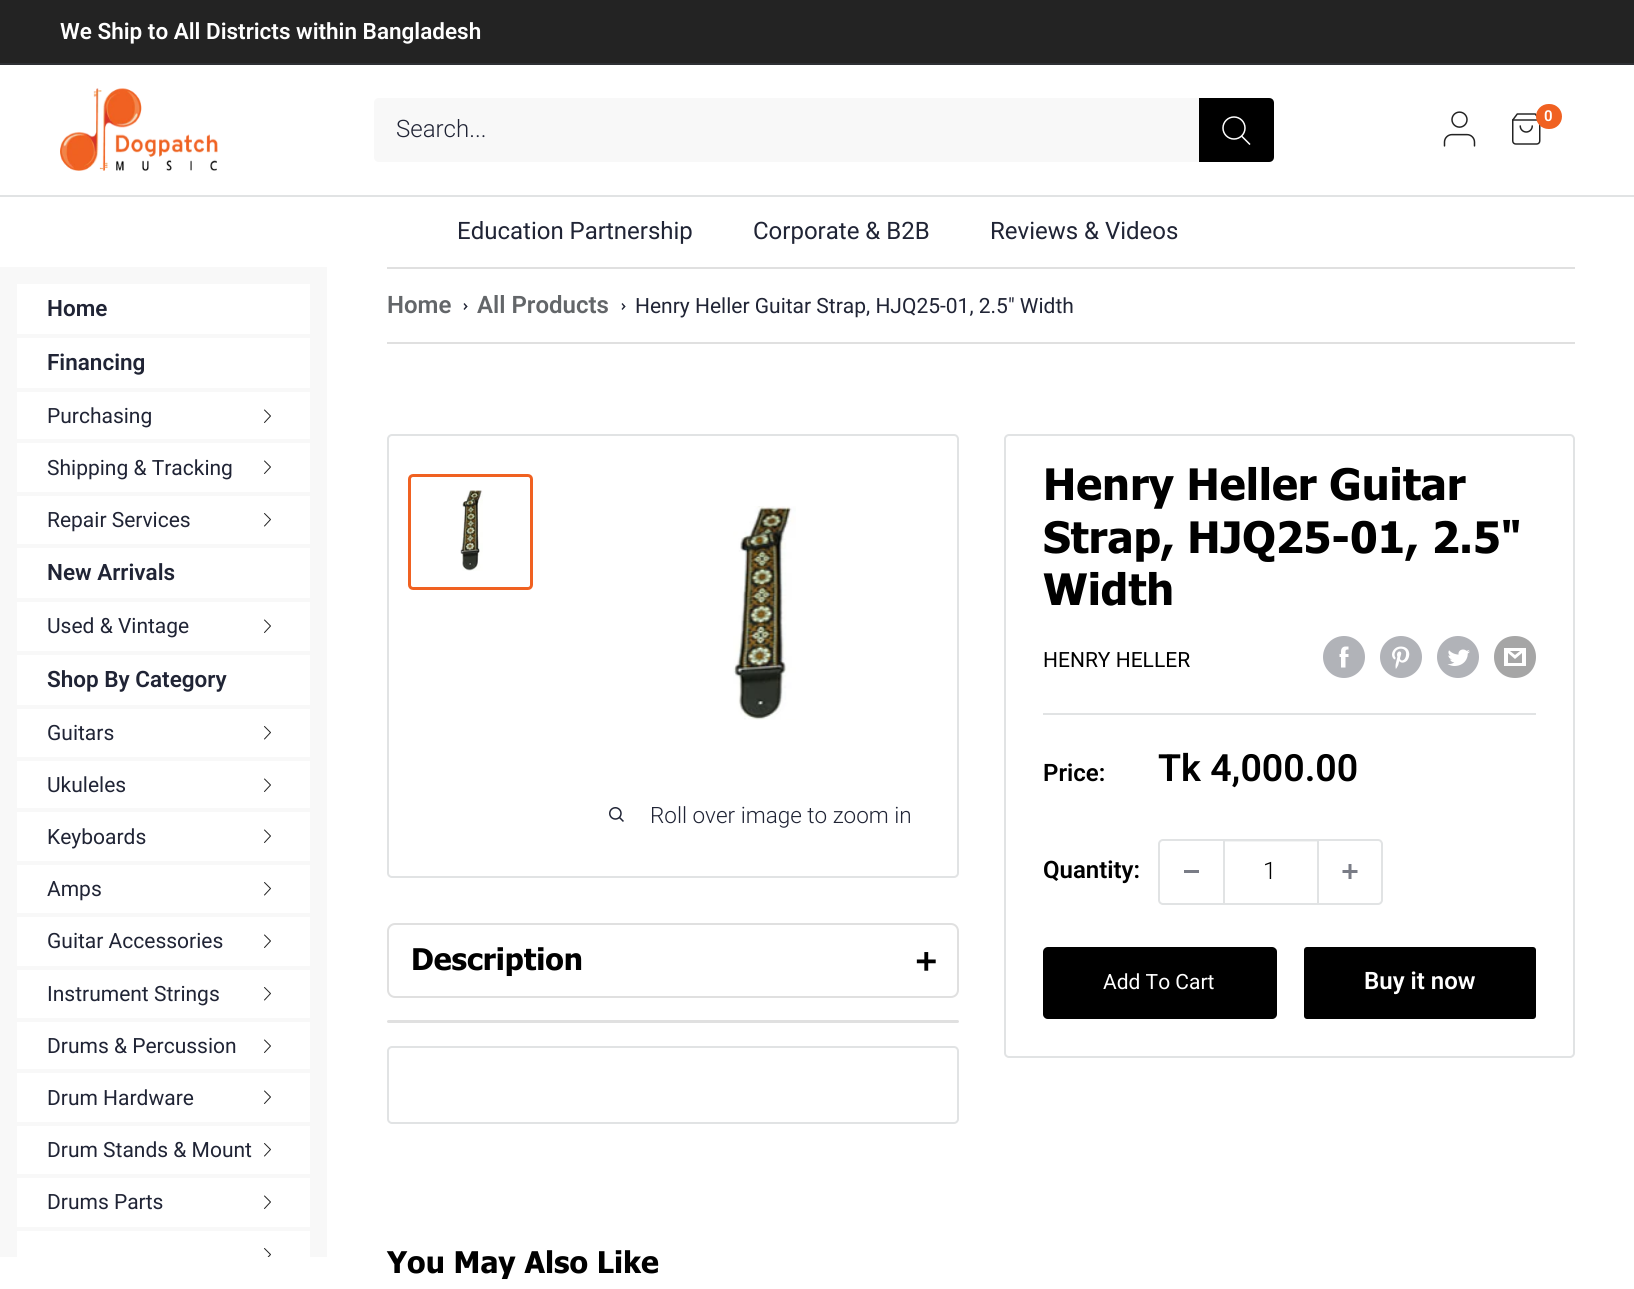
#include <cairo.h>
#include <math.h>
#include <stddef.h>


static void round_rect(cairo_t *cr, double x, double y, double w, double h, double r) {
    cairo_new_sub_path(cr);
    cairo_arc(cr, x + w - r, y + h - r, r, 0, M_PI / 2);
    cairo_arc(cr, x + r, y + h - r, r, M_PI / 2, M_PI);
    cairo_arc(cr, x + r, y + r, r, M_PI, 1.5 * M_PI);
    cairo_arc(cr, x + w - r, y + r, r, 1.5 * M_PI, 2 * M_PI);
    cairo_close_path(cr);
}

static void picture(cairo_t *cr, const char *path, double x, double y, double w, double h) {
    cairo_surface_t *image = cairo_image_surface_create_from_png(path);
    cairo_save(cr);
    cairo_set_source_surface(cr, image, x, y);
    cairo_rectangle(cr, x, y, w, h);
    cairo_fill(cr);
    cairo_restore(cr);
    cairo_surface_destroy(image);
}

int main(void) {
    cairo_surface_t *surface = cairo_image_surface_create(CAIRO_FORMAT_RGB24, 1634, 1289);
    cairo_t *cr = cairo_create(surface);
    cairo_font_options_t *options = cairo_font_options_create();
    cairo_font_options_set_hint_metrics(options, CAIRO_HINT_METRICS_OFF);
    cairo_font_options_set_hint_style(options, CAIRO_HINT_STYLE_NONE);
    cairo_set_font_options(cr, options);
    cairo_set_miter_limit(cr, 4);
    cairo_set_source_rgb(cr, 1, 1, 1);
    cairo_paint(cr);
    cairo_set_source_rgb(cr, 0.137, 0.137, 0.137);
    cairo_rectangle(cr, 0, 0, 1634, 63);
    cairo_fill(cr);
    cairo_set_source_rgb(cr, 0.18, 0.188, 0.204);
    cairo_rectangle(cr, 0, 63, 1634, 2);
    cairo_fill(cr);
    cairo_select_font_face(cr, "Roboto SemiBold", CAIRO_FONT_SLANT_NORMAL, CAIRO_FONT_WEIGHT_NORMAL);
    cairo_set_font_size(cr, 22.5);
    cairo_set_source_rgb(cr, 1, 1, 1);
    cairo_move_to(cr, 60, 39);
    cairo_show_text(cr, "We Ship to All Districts within Bangladesh");
    picture(cr, "img1.png", 60, 88, 158, 83);
    picture(cr, "img2.png", 1443, 111, 33, 36);
    picture(cr, "img3.png", 1512, 113, 29, 32);
    cairo_set_source_rgb(cr, 0.941, 0.38, 0.129);
    round_rect(cr, 1536, 104, 26, 25, 12.5);
    cairo_fill(cr);
    cairo_set_font_size(cr, 15);
    cairo_set_source_rgb(cr, 1, 1, 1);
    cairo_move_to(cr, 1544, 121);
    cairo_show_text(cr, "0");
    cairo_set_source_rgb(cr, 0.969, 0.969, 0.969);
    cairo_new_path(cr);
    cairo_move_to(cr, 379, 98);
    cairo_line_to(cr, 1199, 98);
    cairo_line_to(cr, 1199, 162);
    cairo_line_to(cr, 379, 162);
    cairo_curve_to(cr, 376, 162, 374, 160, 374, 157);
    cairo_line_to(cr, 374, 103);
    cairo_curve_to(cr, 374, 100, 376, 98, 379, 98);
    cairo_close_path(cr);
    cairo_fill(cr);
    cairo_select_font_face(cr, "Roboto Light", CAIRO_FONT_SLANT_NORMAL, CAIRO_FONT_WEIGHT_NORMAL);
    cairo_set_font_size(cr, 24);
    cairo_set_source_rgb(cr, 0.125, 0.141, 0.208);
    cairo_move_to(cr, 396, 137);
    cairo_show_text(cr, "Search...");
    cairo_set_source_rgb(cr, 0, 0, 0);
    cairo_new_path(cr);
    cairo_move_to(cr, 1199, 98);
    cairo_line_to(cr, 1269, 98);
    cairo_curve_to(cr, 1272, 98, 1274, 100, 1274, 103);
    cairo_line_to(cr, 1274, 157);
    cairo_curve_to(cr, 1274, 160, 1272, 162, 1269, 162);
    cairo_line_to(cr, 1199, 162);
    cairo_close_path(cr);
    cairo_fill(cr);
    cairo_new_path(cr);
    cairo_move_to(cr, 1249.5, 144);
    cairo_line_to(cr, 1242, 136.5);
    cairo_set_source_rgb(cr, 1, 1, 1);
    cairo_set_line_width(cr, 1.5);
    cairo_set_line_cap(cr, CAIRO_LINE_CAP_SQUARE);
    cairo_stroke(cr);
    cairo_arc(cr, 1234, 128, 11, 0, 2 * M_PI);
    cairo_set_line_cap(cr, CAIRO_LINE_CAP_BUTT);
    cairo_stroke(cr);
    cairo_set_source_rgb(cr, 0.882, 0.89, 0.894);
    cairo_rectangle(cr, 0, 195, 1634, 2);
    cairo_fill(cr);
    cairo_select_font_face(cr, "Roboto", CAIRO_FONT_SLANT_NORMAL, CAIRO_FONT_WEIGHT_NORMAL);
    cairo_set_source_rgb(cr, 0.125, 0.141, 0.208);
    cairo_move_to(cr, 457, 239);
    cairo_show_text(cr, "Education Partnership");
    cairo_move_to(cr, 753, 239);
    cairo_show_text(cr, "Corporate & B2B");
    cairo_move_to(cr, 990, 239);
    cairo_show_text(cr, "Reviews & Videos");
    cairo_set_source_rgb(cr, 0.969, 0.969, 0.969);
    cairo_rectangle(cr, 0, 267, 327, 990);
    cairo_fill(cr);
    cairo_set_source_rgb(cr, 1, 1, 1);
    cairo_rectangle(cr, 17, 284, 293, 50);
    cairo_fill(cr);
    cairo_select_font_face(cr, "Roboto SemiBold", CAIRO_FONT_SLANT_NORMAL, CAIRO_FONT_WEIGHT_NORMAL);
    cairo_set_font_size(cr, 22.5);
    cairo_set_source_rgb(cr, 0.125, 0.141, 0.208);
    cairo_move_to(cr, 47, 316);
    cairo_show_text(cr, "Home");
    cairo_set_source_rgb(cr, 1, 1, 1);
    cairo_rectangle(cr, 17, 338, 293, 50);
    cairo_fill(cr);
    cairo_set_source_rgb(cr, 0.125, 0.141, 0.208);
    cairo_move_to(cr, 47, 370);
    cairo_show_text(cr, "Financing");
    cairo_set_source_rgb(cr, 1, 1, 1);
    cairo_rectangle(cr, 17, 392, 293, 47);
    cairo_fill(cr);
    cairo_select_font_face(cr, "Roboto", CAIRO_FONT_SLANT_NORMAL, CAIRO_FONT_WEIGHT_NORMAL);
    cairo_set_font_size(cr, 21);
    cairo_set_source_rgb(cr, 0.125, 0.141, 0.208);
    cairo_move_to(cr, 47, 423);
    cairo_show_text(cr, "Purchasing");
    cairo_new_path(cr);
    cairo_move_to(cr, 264.5, 422.5);
    cairo_line_to(cr, 270.5, 416);
    cairo_line_to(cr, 264.5, 410);
    cairo_set_source_rgb(cr, 0.137, 0.137, 0.137);
    cairo_set_line_width(cr, 1);
    cairo_set_line_cap(cr, CAIRO_LINE_CAP_ROUND);
    cairo_set_line_join(cr, CAIRO_LINE_JOIN_ROUND);
    cairo_stroke(cr);
    cairo_set_source_rgb(cr, 1, 1, 1);
    cairo_rectangle(cr, 17, 443, 293, 49);
    cairo_fill(cr);
    cairo_set_source_rgb(cr, 0.125, 0.141, 0.208);
    cairo_move_to(cr, 47, 475);
    cairo_show_text(cr, "Shipping & Tracking");
    cairo_new_path(cr);
    cairo_move_to(cr, 264.5, 473.5);
    cairo_line_to(cr, 270.5, 467);
    cairo_line_to(cr, 264.5, 461);
    cairo_set_source_rgb(cr, 0.137, 0.137, 0.137);
    cairo_stroke(cr);
    cairo_set_source_rgb(cr, 1, 1, 1);
    cairo_rectangle(cr, 17, 496, 293, 48);
    cairo_fill(cr);
    cairo_set_source_rgb(cr, 0.125, 0.141, 0.208);
    cairo_move_to(cr, 47, 527);
    cairo_show_text(cr, "Repair Services");
    cairo_new_path(cr);
    cairo_move_to(cr, 264.5, 526);
    cairo_line_to(cr, 270.5, 519.5);
    cairo_line_to(cr, 264.5, 513.5);
    cairo_set_source_rgb(cr, 0.137, 0.137, 0.137);
    cairo_stroke(cr);
    cairo_set_source_rgb(cr, 1, 1, 1);
    cairo_rectangle(cr, 17, 548, 293, 50);
    cairo_fill(cr);
    cairo_select_font_face(cr, "Roboto SemiBold", CAIRO_FONT_SLANT_NORMAL, CAIRO_FONT_WEIGHT_NORMAL);
    cairo_set_font_size(cr, 22.5);
    cairo_set_source_rgb(cr, 0.125, 0.141, 0.208);
    cairo_move_to(cr, 47, 580);
    cairo_show_text(cr, "New Arrivals");
    cairo_set_source_rgb(cr, 1, 1, 1);
    cairo_rectangle(cr, 17, 602, 293, 49);
    cairo_fill(cr);
    cairo_select_font_face(cr, "Roboto", CAIRO_FONT_SLANT_NORMAL, CAIRO_FONT_WEIGHT_NORMAL);
    cairo_set_font_size(cr, 21);
    cairo_set_source_rgb(cr, 0.125, 0.141, 0.208);
    cairo_move_to(cr, 47, 633);
    cairo_show_text(cr, "Used & Vintage");
    cairo_new_path(cr);
    cairo_move_to(cr, 264.5, 632.5);
    cairo_line_to(cr, 270.5, 626);
    cairo_line_to(cr, 264.5, 620);
    cairo_set_source_rgb(cr, 0.137, 0.137, 0.137);
    cairo_stroke(cr);
    cairo_set_source_rgb(cr, 1, 1, 1);
    cairo_rectangle(cr, 17, 655, 293, 50);
    cairo_fill(cr);
    cairo_select_font_face(cr, "Roboto SemiBold", CAIRO_FONT_SLANT_NORMAL, CAIRO_FONT_WEIGHT_NORMAL);
    cairo_set_font_size(cr, 22.5);
    cairo_set_source_rgb(cr, 0.125, 0.141, 0.208);
    cairo_move_to(cr, 47, 687);
    cairo_show_text(cr, "Shop By Category");
    cairo_set_source_rgb(cr, 1, 1, 1);
    cairo_rectangle(cr, 17, 709, 293, 48);
    cairo_fill(cr);
    cairo_select_font_face(cr, "Roboto", CAIRO_FONT_SLANT_NORMAL, CAIRO_FONT_WEIGHT_NORMAL);
    cairo_set_font_size(cr, 21);
    cairo_set_source_rgb(cr, 0.125, 0.141, 0.208);
    cairo_move_to(cr, 47, 740);
    cairo_show_text(cr, "Guitars");
    cairo_new_path(cr);
    cairo_move_to(cr, 264.5, 739);
    cairo_line_to(cr, 270.5, 732.5);
    cairo_line_to(cr, 264.5, 726.5);
    cairo_set_source_rgb(cr, 0.137, 0.137, 0.137);
    cairo_stroke(cr);
    cairo_set_source_rgb(cr, 1, 1, 1);
    cairo_rectangle(cr, 17, 761, 293, 47);
    cairo_fill(cr);
    cairo_set_source_rgb(cr, 0.125, 0.141, 0.208);
    cairo_move_to(cr, 47, 792);
    cairo_show_text(cr, "Ukuleles");
    cairo_new_path(cr);
    cairo_move_to(cr, 264.5, 791.5);
    cairo_line_to(cr, 270.5, 785);
    cairo_line_to(cr, 264.5, 779);
    cairo_set_source_rgb(cr, 0.137, 0.137, 0.137);
    cairo_stroke(cr);
    cairo_set_source_rgb(cr, 1, 1, 1);
    cairo_rectangle(cr, 17, 812, 293, 49);
    cairo_fill(cr);
    cairo_set_source_rgb(cr, 0.125, 0.141, 0.208);
    cairo_move_to(cr, 47, 844);
    cairo_show_text(cr, "Keyboards");
    cairo_new_path(cr);
    cairo_move_to(cr, 264.5, 842.5);
    cairo_line_to(cr, 270.5, 836);
    cairo_line_to(cr, 264.5, 830);
    cairo_set_source_rgb(cr, 0.137, 0.137, 0.137);
    cairo_stroke(cr);
    cairo_set_source_rgb(cr, 1, 1, 1);
    cairo_rectangle(cr, 17, 865, 293, 48);
    cairo_fill(cr);
    cairo_set_source_rgb(cr, 0.125, 0.141, 0.208);
    cairo_move_to(cr, 47, 896);
    cairo_show_text(cr, "Amps");
    cairo_new_path(cr);
    cairo_move_to(cr, 264.5, 895);
    cairo_line_to(cr, 270.5, 888.5);
    cairo_line_to(cr, 264.5, 882.5);
    cairo_set_source_rgb(cr, 0.137, 0.137, 0.137);
    cairo_stroke(cr);
    cairo_set_source_rgb(cr, 1, 1, 1);
    cairo_rectangle(cr, 17, 917, 293, 49);
    cairo_fill(cr);
    cairo_set_source_rgb(cr, 0.125, 0.141, 0.208);
    cairo_move_to(cr, 47, 948);
    cairo_show_text(cr, "Guitar Accessories");
    cairo_new_path(cr);
    cairo_move_to(cr, 264.5, 947.5);
    cairo_line_to(cr, 270.5, 941);
    cairo_line_to(cr, 264.5, 935);
    cairo_set_source_rgb(cr, 0.137, 0.137, 0.137);
    cairo_stroke(cr);
    cairo_set_source_rgb(cr, 1, 1, 1);
    cairo_rectangle(cr, 17, 970, 293, 48);
    cairo_fill(cr);
    cairo_set_source_rgb(cr, 0.125, 0.141, 0.208);
    cairo_move_to(cr, 47, 1001);
    cairo_show_text(cr, "Instrument Strings");
    cairo_new_path(cr);
    cairo_move_to(cr, 264.5, 1000);
    cairo_line_to(cr, 270.5, 993.5);
    cairo_line_to(cr, 264.5, 987.5);
    cairo_set_source_rgb(cr, 0.137, 0.137, 0.137);
    cairo_stroke(cr);
    cairo_set_source_rgb(cr, 1, 1, 1);
    cairo_rectangle(cr, 17, 1022, 293, 47);
    cairo_fill(cr);
    cairo_set_source_rgb(cr, 0.125, 0.141, 0.208);
    cairo_move_to(cr, 47, 1053);
    cairo_show_text(cr, "Drums & Percussion");
    cairo_new_path(cr);
    cairo_move_to(cr, 264.5, 1052.5);
    cairo_line_to(cr, 270.5, 1046);
    cairo_line_to(cr, 264.5, 1040);
    cairo_set_source_rgb(cr, 0.137, 0.137, 0.137);
    cairo_stroke(cr);
    cairo_set_source_rgb(cr, 1, 1, 1);
    cairo_rectangle(cr, 17, 1073, 293, 49);
    cairo_fill(cr);
    cairo_set_source_rgb(cr, 0.125, 0.141, 0.208);
    cairo_move_to(cr, 47, 1105);
    cairo_show_text(cr, "Drum Hardware");
    cairo_new_path(cr);
    cairo_move_to(cr, 264.5, 1103.5);
    cairo_line_to(cr, 270.5, 1097);
    cairo_line_to(cr, 264.5, 1091);
    cairo_set_source_rgb(cr, 0.137, 0.137, 0.137);
    cairo_stroke(cr);
    cairo_set_source_rgb(cr, 1, 1, 1);
    cairo_rectangle(cr, 17, 1126, 293, 48);
    cairo_fill(cr);
    cairo_set_source_rgb(cr, 0.125, 0.141, 0.208);
    cairo_move_to(cr, 47, 1157);
    cairo_show_text(cr, "Drum Stands & Mount");
    cairo_new_path(cr);
    cairo_move_to(cr, 264.5, 1156);
    cairo_line_to(cr, 270.5, 1149.5);
    cairo_line_to(cr, 264.5, 1143.5);
    cairo_set_source_rgb(cr, 0.137, 0.137, 0.137);
    cairo_stroke(cr);
    cairo_set_source_rgb(cr, 1, 1, 1);
    cairo_rectangle(cr, 17, 1178, 293, 49);
    cairo_fill(cr);
    cairo_set_source_rgb(cr, 0.125, 0.141, 0.208);
    cairo_move_to(cr, 47, 1209);
    cairo_show_text(cr, "Drums Parts");
    cairo_new_path(cr);
    cairo_move_to(cr, 264.5, 1208.5);
    cairo_line_to(cr, 270.5, 1202);
    cairo_line_to(cr, 264.5, 1196);
    cairo_set_source_rgb(cr, 0.137, 0.137, 0.137);
    cairo_stroke(cr);
    cairo_set_source_rgb(cr, 1, 1, 1);
    cairo_rectangle(cr, 17, 1231, 293, 26);
    cairo_fill(cr);
    cairo_save(cr);
    cairo_rectangle(cr, 0, 267, 327, 990);
    cairo_clip(cr);
    cairo_new_path(cr);
    cairo_move_to(cr, 264.5, 1261);
    cairo_line_to(cr, 270.5, 1254.5);
    cairo_line_to(cr, 264.5, 1248.5);
    cairo_set_source_rgb(cr, 0.137, 0.137, 0.137);
    cairo_stroke(cr);
    cairo_restore(cr);
    cairo_set_source_rgb(cr, 0.878, 0.878, 0.878);
    cairo_rectangle(cr, 387, 267, 1188, 2);
    cairo_fill(cr);
    cairo_rectangle(cr, 387, 342, 1188, 2);
    cairo_fill(cr);
    cairo_select_font_face(cr, "Roboto SemiBold", CAIRO_FONT_SLANT_NORMAL, CAIRO_FONT_WEIGHT_NORMAL);
    cairo_set_font_size(cr, 24);
    cairo_set_source_rgb(cr, 0.388, 0.4, 0.412);
    cairo_move_to(cr, 387, 313);
    cairo_show_text(cr, "Home");
    cairo_set_source_rgb(cr, 0.125, 0.141, 0.208);
    cairo_new_path(cr);
    cairo_move_to(cr, 464.5, 303);
    cairo_line_to(cr, 467.5, 306.5);
    cairo_line_to(cr, 466.5, 307.5);
    cairo_line_to(cr, 463.5, 304);
    cairo_close_path(cr);
    cairo_fill(cr);
    cairo_new_path(cr);
    cairo_move_to(cr, 466.5, 305.5);
    cairo_line_to(cr, 467.5, 306.5);
    cairo_line_to(cr, 464.5, 310);
    cairo_line_to(cr, 463.5, 309);
    cairo_close_path(cr);
    cairo_fill(cr);
    cairo_set_source_rgb(cr, 0.388, 0.4, 0.412);
    cairo_move_to(cr, 477, 313);
    cairo_show_text(cr, "All Products");
    cairo_set_source_rgb(cr, 0.125, 0.141, 0.208);
    cairo_new_path(cr);
    cairo_move_to(cr, 622.5, 303);
    cairo_line_to(cr, 625.5, 306.5);
    cairo_line_to(cr, 624.5, 307.5);
    cairo_line_to(cr, 621.5, 304);
    cairo_close_path(cr);
    cairo_fill(cr);
    cairo_new_path(cr);
    cairo_move_to(cr, 624.5, 305.5);
    cairo_line_to(cr, 625.5, 306.5);
    cairo_line_to(cr, 622.5, 310);
    cairo_line_to(cr, 621.5, 309);
    cairo_close_path(cr);
    cairo_fill(cr);
    cairo_select_font_face(cr, "Roboto", CAIRO_FONT_SLANT_NORMAL, CAIRO_FONT_WEIGHT_NORMAL);
    cairo_set_font_size(cr, 21);
    cairo_move_to(cr, 635, 313);
    cairo_show_text(cr, "Henry Heller Guitar Strap, HJQ25-01, 2.5\" Width");
    round_rect(cr, 388, 435, 570, 442, 4);
    cairo_set_source_rgb(cr, 0.882, 0.89, 0.894);
    cairo_set_line_width(cr, 2);
    cairo_set_line_cap(cr, CAIRO_LINE_CAP_BUTT);
    cairo_set_line_join(cr, CAIRO_LINE_JOIN_MITER);
    cairo_stroke(cr);
    round_rect(cr, 409.5, 475.5, 122, 113, 3.5);
    cairo_set_source_rgb(cr, 0.941, 0.38, 0.129);
    cairo_set_line_width(cr, 3);
    cairo_stroke(cr);
    picture(cr, "img4.png", 460, 490, 23, 81);
    picture(cr, "img5.png", 733, 506, 63, 214);
    picture(cr, "img6.png", 609, 807, 15, 15);
    cairo_select_font_face(cr, "Roboto Light", CAIRO_FONT_SLANT_NORMAL, CAIRO_FONT_WEIGHT_NORMAL);
    cairo_set_font_size(cr, 22.5);
    cairo_set_source_rgb(cr, 0.125, 0.141, 0.208);
    cairo_move_to(cr, 650, 823);
    cairo_show_text(cr, "Roll over image to zoom in");
    round_rect(cr, 1005, 435, 569, 622, 4);
    cairo_set_source_rgb(cr, 0.882, 0.89, 0.894);
    cairo_set_line_width(cr, 2);
    cairo_stroke(cr);
    cairo_select_font_face(cr, "Tahoma", CAIRO_FONT_SLANT_NORMAL, CAIRO_FONT_WEIGHT_BOLD);
    cairo_set_font_size(cr, 43.5);
    cairo_set_source_rgb(cr, 0, 0, 0);
    cairo_move_to(cr, 1043, 500);
    cairo_show_text(cr, "Henry Heller Guitar");
    cairo_move_to(cr, 1043, 553);
    cairo_show_text(cr, "Strap, HJQ25-01, 2.5\"");
    cairo_move_to(cr, 1043, 605);
    cairo_show_text(cr, "Width");
    cairo_select_font_face(cr, "Roboto", CAIRO_FONT_SLANT_NORMAL, CAIRO_FONT_WEIGHT_NORMAL);
    cairo_set_font_size(cr, 21);
    cairo_move_to(cr, 1043, 667);
    cairo_show_text(cr, "HENRY HELLER");
    picture(cr, "img7.png", 1323, 636, 42, 42);
    picture(cr, "img8.png", 1380, 636, 42, 42);
    picture(cr, "img9.png", 1437, 636, 42, 42);
    cairo_set_source_rgb(cr, 0.651, 0.651, 0.651);
    cairo_new_path(cr);
    cairo_move_to(cr, 1515, 678);
    cairo_curve_to(cr, 1487, 678, 1487, 636, 1515, 636);
    cairo_curve_to(cr, 1543, 636, 1543, 678, 1515, 678);
    cairo_close_path(cr);
    cairo_move_to(cr, 1510, 651);
    cairo_line_to(cr, 1520, 651);
    cairo_line_to(cr, 1515, 655);
    cairo_close_path(cr);
    cairo_move_to(cr, 1522, 653);
    cairo_line_to(cr, 1522, 663);
    cairo_line_to(cr, 1508, 663);
    cairo_line_to(cr, 1508, 653);
    cairo_line_to(cr, 1515, 659);
    cairo_close_path(cr);
    cairo_move_to(cr, 1526, 648);
    cairo_line_to(cr, 1504, 648);
    cairo_line_to(cr, 1504, 666);
    cairo_line_to(cr, 1526, 666);
    cairo_close_path(cr);
    cairo_fill(cr);
    cairo_set_source_rgb(cr, 0.882, 0.89, 0.894);
    cairo_rectangle(cr, 1043, 713, 493, 2);
    cairo_fill(cr);
    cairo_select_font_face(cr, "Roboto SemiBold", CAIRO_FONT_SLANT_NORMAL, CAIRO_FONT_WEIGHT_NORMAL);
    cairo_set_font_size(cr, 24);
    cairo_set_source_rgb(cr, 0, 0, 0);
    cairo_move_to(cr, 1043, 781);
    cairo_show_text(cr, "Price:");
    cairo_set_font_size(cr, 37.5);
    cairo_move_to(cr, 1158, 781);
    cairo_show_text(cr, "Tk 4,000.00");
    cairo_set_font_size(cr, 24);
    cairo_move_to(cr, 1043, 878);
    cairo_show_text(cr, "Quantity:");
    round_rect(cr, 1159, 840, 223, 64, 4);
    cairo_set_source_rgb(cr, 0.882, 0.89, 0.894);
    cairo_stroke(cr);
    cairo_set_source_rgb(cr, 0.475, 0.486, 0.525);
    cairo_rectangle(cr, 1184, 870, 15, 3);
    cairo_fill(cr);
    cairo_set_source_rgba(cr, 0.882, 0.89, 0.894, 0.4);
    cairo_rectangle(cr, 1224, 841, 93, 1);
    cairo_fill(cr);
    cairo_set_source_rgb(cr, 0.882, 0.89, 0.894);
    cairo_rectangle(cr, 1317, 840, 2, 63);
    cairo_fill(cr);
    cairo_rectangle(cr, 1223, 840, 2, 63);
    cairo_fill(cr);
    cairo_select_font_face(cr, "Roboto Light", CAIRO_FONT_SLANT_NORMAL, CAIRO_FONT_WEIGHT_NORMAL);
    cairo_set_source_rgb(cr, 0, 0, 0);
    cairo_move_to(cr, 1263, 879);
    cairo_show_text(cr, "1");
    picture(cr, "img10.png", 1342, 864, 16, 15);
    round_rect(cr, 1043, 947, 234, 72, 5);
    cairo_fill(cr);
    cairo_set_source_rgba(cr, 0, 0, 0, 0.25);
    cairo_new_path(cr);
    cairo_move_to(cr, 1043, 1013);
    cairo_line_to(cr, 1043, 1014);
    cairo_curve_to(cr, 1043, 1017, 1045, 1019, 1048, 1019);
    cairo_line_to(cr, 1272, 1019);
    cairo_curve_to(cr, 1275, 1019, 1277, 1017, 1277, 1014);
    cairo_line_to(cr, 1277, 952);
    cairo_curve_to(cr, 1277, 951, 1277, 950, 1276, 949);
    cairo_line_to(cr, 1276, 1011);
    cairo_curve_to(cr, 1276, 1013, 1274, 1016, 1272, 1016);
    cairo_line_to(cr, 1047, 1016);
    cairo_curve_to(cr, 1046, 1016, 1044, 1015, 1043, 1013);
    cairo_close_path(cr);
    cairo_fill(cr);
    cairo_select_font_face(cr, "Roboto", CAIRO_FONT_SLANT_NORMAL, CAIRO_FONT_WEIGHT_NORMAL);
    cairo_set_font_size(cr, 21);
    cairo_set_source_rgb(cr, 1, 1, 1);
    cairo_move_to(cr, 1103, 989);
    cairo_show_text(cr, "Add To Cart");
    cairo_set_source_rgb(cr, 0, 0, 0);
    round_rect(cr, 1304, 947, 232, 72, 3);
    cairo_fill(cr);
    cairo_select_font_face(cr, "Roboto SemiBold", CAIRO_FONT_SLANT_NORMAL, CAIRO_FONT_WEIGHT_NORMAL);
    cairo_set_font_size(cr, 24);
    cairo_set_source_rgb(cr, 1, 1, 1);
    cairo_move_to(cr, 1364, 989);
    cairo_show_text(cr, "Buy it now");
    round_rect(cr, 388, 924, 570, 73, 7);
    cairo_set_source_rgb(cr, 0.878, 0.878, 0.878);
    cairo_stroke(cr);
    cairo_select_font_face(cr, "Tahoma", CAIRO_FONT_SLANT_NORMAL, CAIRO_FONT_WEIGHT_BOLD);
    cairo_set_font_size(cr, 30);
    cairo_set_source_rgb(cr, 0, 0, 0);
    cairo_move_to(cr, 411, 970);
    cairo_show_text(cr, "Description");
    cairo_move_to(cr, 914, 971);
    cairo_show_text(cr, "+");
    cairo_set_source_rgb(cr, 0.878, 0.878, 0.878);
    round_rect(cr, 387, 1020, 572, 3, 1.5);
    cairo_fill(cr);
    round_rect(cr, 388, 1047, 570, 76, 4);
    cairo_set_source_rgb(cr, 0.882, 0.89, 0.894);
    cairo_stroke(cr);
    cairo_set_source_rgb(cr, 0, 0, 0);
    cairo_move_to(cr, 387, 1273);
    cairo_show_text(cr, "You May Also Like");
    cairo_surface_write_to_png(surface, "page.png");
    cairo_font_options_destroy(options);
    cairo_destroy(cr);
    cairo_surface_destroy(surface);
    return 0;
}
